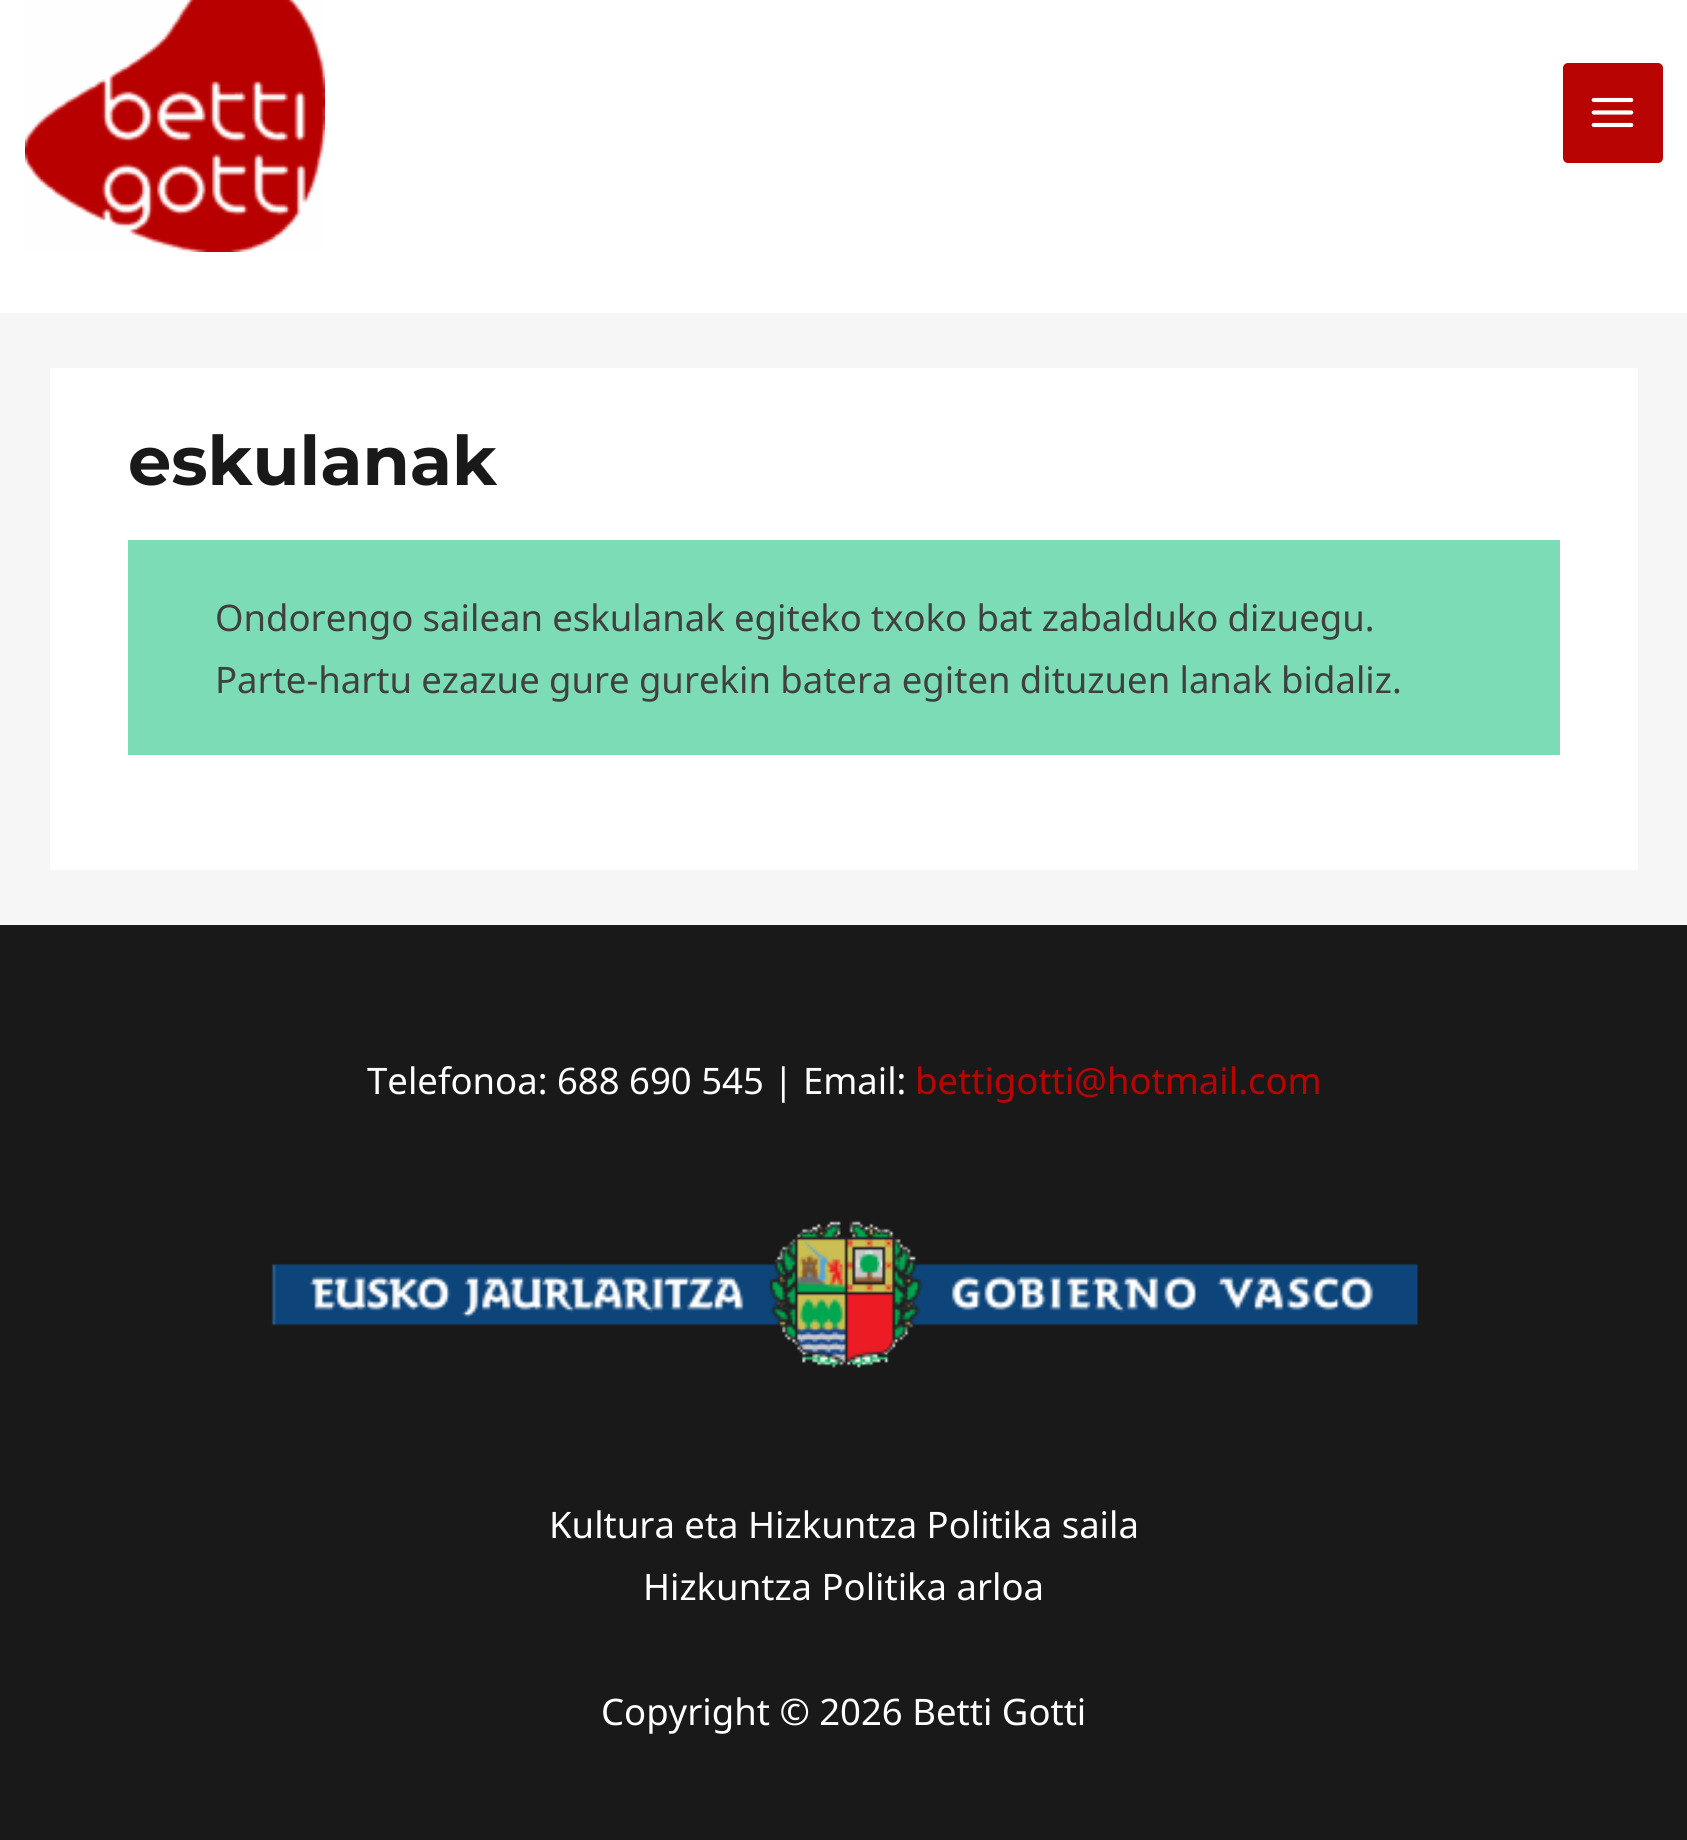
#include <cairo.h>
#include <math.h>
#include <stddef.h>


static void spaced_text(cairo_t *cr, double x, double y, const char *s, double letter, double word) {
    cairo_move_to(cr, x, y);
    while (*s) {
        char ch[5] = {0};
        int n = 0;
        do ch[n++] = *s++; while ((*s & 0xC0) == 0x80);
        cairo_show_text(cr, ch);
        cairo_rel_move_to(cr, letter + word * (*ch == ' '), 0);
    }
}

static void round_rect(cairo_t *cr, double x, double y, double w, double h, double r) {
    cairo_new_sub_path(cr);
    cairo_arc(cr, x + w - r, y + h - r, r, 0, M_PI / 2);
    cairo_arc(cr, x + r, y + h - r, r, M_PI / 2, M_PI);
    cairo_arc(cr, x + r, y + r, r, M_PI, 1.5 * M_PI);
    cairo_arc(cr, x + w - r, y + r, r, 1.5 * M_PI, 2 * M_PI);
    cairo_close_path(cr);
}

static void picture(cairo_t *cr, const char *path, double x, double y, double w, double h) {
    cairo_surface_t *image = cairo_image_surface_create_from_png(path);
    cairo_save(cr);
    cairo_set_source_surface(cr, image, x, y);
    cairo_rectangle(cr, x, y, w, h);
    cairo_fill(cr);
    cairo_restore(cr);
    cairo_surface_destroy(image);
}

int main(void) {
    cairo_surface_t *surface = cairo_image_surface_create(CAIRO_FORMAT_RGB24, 1687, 1840);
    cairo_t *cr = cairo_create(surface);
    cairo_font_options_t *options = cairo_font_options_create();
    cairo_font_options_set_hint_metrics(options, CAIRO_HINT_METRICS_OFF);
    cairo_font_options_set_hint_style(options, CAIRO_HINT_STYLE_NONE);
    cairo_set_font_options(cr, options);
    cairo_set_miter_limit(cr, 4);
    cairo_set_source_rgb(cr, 0.961, 0.961, 0.961);
    cairo_paint(cr);
    cairo_set_source_rgb(cr, 1, 1, 1);
    cairo_rectangle(cr, 0, 0, 1687, 313);
    cairo_fill(cr);
    picture(cr, "img1.png", 25, 0, 300, 252);
    cairo_set_source_rgb(cr, 0.722, 0.016, 0.008);
    round_rect(cr, 1563, 63, 100, 100, 5);
    cairo_fill(cr);
    picture(cr, "img2.png", 1591, 97, 43, 31);
    cairo_set_source_rgb(cr, 1, 1, 1);
    cairo_rectangle(cr, 50, 368, 1588, 502);
    cairo_fill(cr);
    cairo_select_font_face(cr, "Montserrat Thin", CAIRO_FONT_SLANT_NORMAL, CAIRO_FONT_WEIGHT_NORMAL);
    cairo_set_font_size(cr, 68.5);
    cairo_set_source_rgb(cr, 0.098, 0.098, 0.098);
    cairo_move_to(cr, 128, 485);
    cairo_show_text(cr, "eskulanak");
    cairo_set_source_rgb(cr, 0.482, 0.863, 0.71);
    cairo_rectangle(cr, 128, 540, 1432, 215);
    cairo_fill(cr);
    cairo_select_font_face(cr, "Noto Sans", CAIRO_FONT_SLANT_NORMAL, CAIRO_FONT_WEIGHT_NORMAL);
    cairo_set_font_size(cr, 36.5);
    cairo_set_source_rgb(cr, 0.251, 0.251, 0.251);
    spaced_text(cr, 215, 631, "Ondorengo sailean eskulanak egiteko txoko bat zabalduko dizuegu.", 0, -0.25);
    spaced_text(cr, 215, 693, "Parte-hartu ezazue gure gurekin batera egiten dituzuen lanak bidaliz.", 0, -0.25);
    cairo_set_source_rgb(cr, 0.098, 0.098, 0.098);
    cairo_rectangle(cr, 0, 925, 1687, 915);
    cairo_fill(cr);
    cairo_set_source_rgb(cr, 1, 1, 1);
    cairo_move_to(cr, 367, 1094);
    cairo_show_text(cr, "Telefonoa: 688 690 545 | Email:");
    cairo_set_source_rgb(cr, 0.722, 0.016, 0.008);
    cairo_move_to(cr, 915, 1094);
    cairo_show_text(cr, "bettigotti@hotmail.com");
    picture(cr, "img3.png", 271, 1221, 1147, 147);
    cairo_set_source_rgb(cr, 1, 1, 1);
    cairo_move_to(cr, 549, 1538);
    cairo_show_text(cr, "Kultura eta Hizkuntza Politika saila");
    cairo_move_to(cr, 643, 1600);
    cairo_show_text(cr, "Hizkuntza Politika arloa");
    cairo_move_to(cr, 601, 1725);
    cairo_show_text(cr, "Copyright © 2026 Betti Gotti");
    cairo_surface_write_to_png(surface, "page.png");
    cairo_font_options_destroy(options);
    cairo_destroy(cr);
    cairo_surface_destroy(surface);
    return 0;
}
